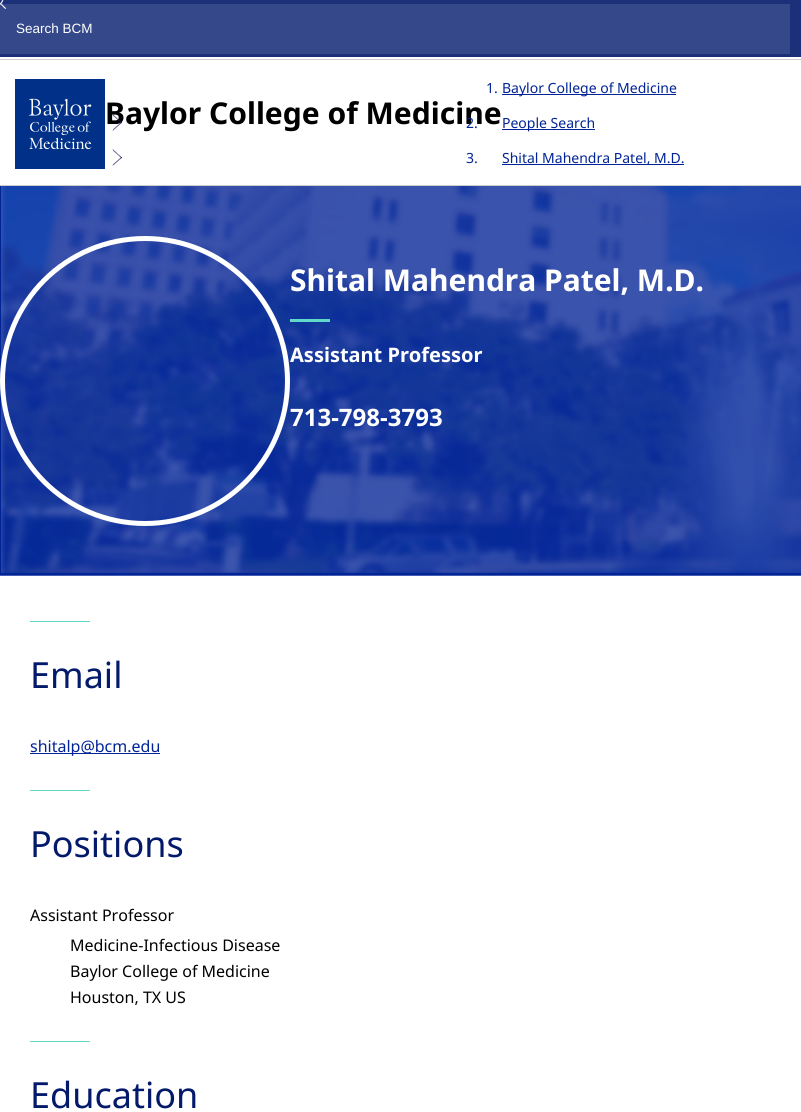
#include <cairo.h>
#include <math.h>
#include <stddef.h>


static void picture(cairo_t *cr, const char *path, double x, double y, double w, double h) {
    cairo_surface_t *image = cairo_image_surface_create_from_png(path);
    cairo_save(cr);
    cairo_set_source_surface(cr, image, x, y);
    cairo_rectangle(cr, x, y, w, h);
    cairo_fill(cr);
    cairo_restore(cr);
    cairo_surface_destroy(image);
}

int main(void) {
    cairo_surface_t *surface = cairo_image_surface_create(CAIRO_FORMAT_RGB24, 801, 1112);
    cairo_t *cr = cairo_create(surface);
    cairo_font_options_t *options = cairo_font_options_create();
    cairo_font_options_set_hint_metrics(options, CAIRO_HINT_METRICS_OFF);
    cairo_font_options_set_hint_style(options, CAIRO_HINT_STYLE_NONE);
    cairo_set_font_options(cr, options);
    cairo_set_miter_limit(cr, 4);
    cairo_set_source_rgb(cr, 1, 1, 1);
    cairo_paint(cr);
    cairo_set_source_rgb(cr, 0.11, 0.188, 0.475);
    cairo_rectangle(cr, 0, 52, 801, 5);
    cairo_fill(cr);
    cairo_rectangle(cr, 0, 0, 748, 4);
    cairo_fill(cr);
    cairo_rectangle(cr, 748, 0, 53, 52);
    cairo_fill(cr);
    cairo_set_source_rgb(cr, 0.208, 0.282, 0.537);
    cairo_rectangle(cr, 0, 4, 790, 50);
    cairo_fill(cr);
    picture(cr, "img1.png", 0, 0, 6, 9);
    cairo_select_font_face(cr, "Liberation Sans", CAIRO_FONT_SLANT_NORMAL, CAIRO_FONT_WEIGHT_NORMAL);
    cairo_set_font_size(cr, 13.5);
    cairo_set_source_rgb(cr, 1, 1, 1);
    cairo_move_to(cr, 16, 33);
    cairo_show_text(cr, "Search BCM");
    picture(cr, "img2.png", 15, 79, 90, 90);
    cairo_select_font_face(cr, "Noto Sans", CAIRO_FONT_SLANT_NORMAL, CAIRO_FONT_WEIGHT_BOLD);
    cairo_set_font_size(cr, 30);
    cairo_set_source_rgb(cr, 0, 0, 0);
    cairo_move_to(cr, 105, 124);
    cairo_show_text(cr, "Baylor College of Medicine");
    cairo_set_source_rgb(cr, 0.8, 0.8, 0.8);
    cairo_rectangle(cr, 0, 59, 801, 1);
    cairo_fill(cr);
    cairo_rectangle(cr, 0, 185, 801, 1);
    cairo_fill(cr);
    cairo_select_font_face(cr, "Noto Sans", CAIRO_FONT_SLANT_NORMAL, CAIRO_FONT_WEIGHT_NORMAL);
    cairo_set_font_size(cr, 14);
    cairo_set_source_rgb(cr, 0, 0.137, 0.588);
    cairo_move_to(cr, 486, 93);
    cairo_show_text(cr, "1.");
    cairo_rectangle(cr, 502, 94, 174, 1);
    cairo_fill(cr);
    cairo_move_to(cr, 502, 93);
    cairo_show_text(cr, "Baylor College of Medicine");
    picture(cr, "img3.png", 112, 114, 10, 17);
    cairo_move_to(cr, 466, 128);
    cairo_show_text(cr, "2.");
    cairo_rectangle(cr, 502, 129, 93, 1);
    cairo_fill(cr);
    cairo_move_to(cr, 502, 128);
    cairo_show_text(cr, "People Search");
    picture(cr, "img4.png", 112, 149, 10, 17);
    cairo_move_to(cr, 466, 163);
    cairo_show_text(cr, "3.");
    cairo_rectangle(cr, 502, 164, 182, 1);
    cairo_fill(cr);
    cairo_move_to(cr, 502, 163);
    cairo_show_text(cr, "Shital Mahendra Patel, M.D.");
    picture(cr, "img5.png", 0, 186, 801, 390);
    cairo_arc(cr, 145, 381, 142.5, 0, 2 * M_PI);
    cairo_set_source_rgb(cr, 1, 1, 1);
    cairo_set_line_width(cr, 5);
    cairo_stroke(cr);
    cairo_select_font_face(cr, "Noto Sans", CAIRO_FONT_SLANT_NORMAL, CAIRO_FONT_WEIGHT_BOLD);
    cairo_set_font_size(cr, 30);
    cairo_move_to(cr, 290, 291);
    cairo_show_text(cr, "Shital Mahendra Patel, M.D.");
    cairo_set_source_rgb(cr, 0.376, 0.847, 0.792);
    cairo_rectangle(cr, 290, 319, 40, 3);
    cairo_fill(cr);
    cairo_set_font_size(cr, 20);
    cairo_set_source_rgb(cr, 1, 1, 1);
    cairo_move_to(cr, 290, 362);
    cairo_show_text(cr, "Assistant Professor");
    cairo_set_font_size(cr, 24);
    cairo_move_to(cr, 290, 426);
    cairo_show_text(cr, "713-798-3793");
    cairo_set_source_rgb(cr, 0.376, 0.847, 0.792);
    cairo_rectangle(cr, 30, 621, 60, 1);
    cairo_fill(cr);
    cairo_select_font_face(cr, "Noto Sans", CAIRO_FONT_SLANT_NORMAL, CAIRO_FONT_WEIGHT_NORMAL);
    cairo_set_font_size(cr, 36);
    cairo_set_source_rgb(cr, 0.012, 0.102, 0.42);
    cairo_move_to(cr, 30, 688);
    cairo_show_text(cr, "Email");
    cairo_set_source_rgb(cr, 0, 0.137, 0.588);
    cairo_rectangle(cr, 30, 753, 130, 1);
    cairo_fill(cr);
    cairo_set_font_size(cr, 16);
    cairo_move_to(cr, 30, 752);
    cairo_show_text(cr, "shitalp@bcm.edu");
    cairo_set_source_rgb(cr, 0.376, 0.847, 0.792);
    cairo_rectangle(cr, 30, 790, 60, 1);
    cairo_fill(cr);
    cairo_set_font_size(cr, 36);
    cairo_set_source_rgb(cr, 0.012, 0.102, 0.42);
    cairo_move_to(cr, 30, 857);
    cairo_show_text(cr, "Positions");
    cairo_set_font_size(cr, 16);
    cairo_set_source_rgb(cr, 0, 0, 0);
    cairo_move_to(cr, 30, 921);
    cairo_show_text(cr, "Assistant Professor");
    cairo_move_to(cr, 70, 951);
    cairo_show_text(cr, "Medicine-Infectious Disease");
    cairo_move_to(cr, 70, 977);
    cairo_show_text(cr, "Baylor College of Medicine");
    cairo_move_to(cr, 70, 1003);
    cairo_show_text(cr, "Houston, TX US");
    cairo_set_source_rgb(cr, 0.376, 0.847, 0.792);
    cairo_rectangle(cr, 30, 1041, 60, 1);
    cairo_fill(cr);
    cairo_set_font_size(cr, 36);
    cairo_set_source_rgb(cr, 0.012, 0.102, 0.42);
    cairo_move_to(cr, 30, 1108);
    cairo_show_text(cr, "Education");
    cairo_surface_write_to_png(surface, "page.png");
    cairo_font_options_destroy(options);
    cairo_destroy(cr);
    cairo_surface_destroy(surface);
    return 0;
}
